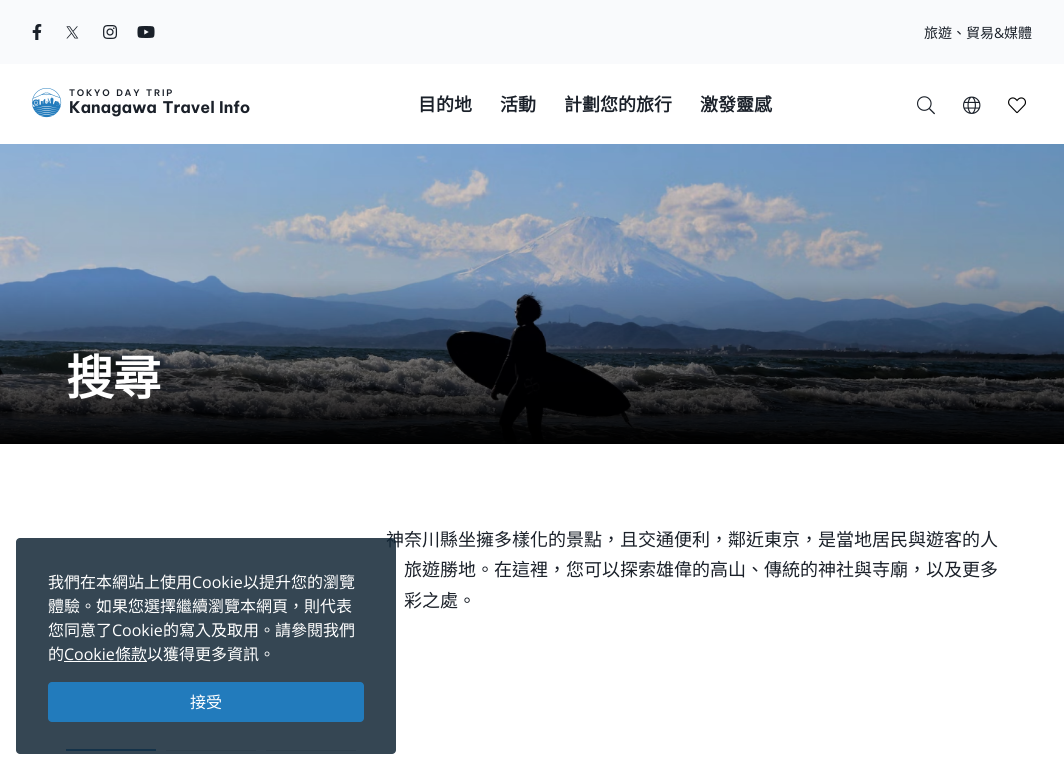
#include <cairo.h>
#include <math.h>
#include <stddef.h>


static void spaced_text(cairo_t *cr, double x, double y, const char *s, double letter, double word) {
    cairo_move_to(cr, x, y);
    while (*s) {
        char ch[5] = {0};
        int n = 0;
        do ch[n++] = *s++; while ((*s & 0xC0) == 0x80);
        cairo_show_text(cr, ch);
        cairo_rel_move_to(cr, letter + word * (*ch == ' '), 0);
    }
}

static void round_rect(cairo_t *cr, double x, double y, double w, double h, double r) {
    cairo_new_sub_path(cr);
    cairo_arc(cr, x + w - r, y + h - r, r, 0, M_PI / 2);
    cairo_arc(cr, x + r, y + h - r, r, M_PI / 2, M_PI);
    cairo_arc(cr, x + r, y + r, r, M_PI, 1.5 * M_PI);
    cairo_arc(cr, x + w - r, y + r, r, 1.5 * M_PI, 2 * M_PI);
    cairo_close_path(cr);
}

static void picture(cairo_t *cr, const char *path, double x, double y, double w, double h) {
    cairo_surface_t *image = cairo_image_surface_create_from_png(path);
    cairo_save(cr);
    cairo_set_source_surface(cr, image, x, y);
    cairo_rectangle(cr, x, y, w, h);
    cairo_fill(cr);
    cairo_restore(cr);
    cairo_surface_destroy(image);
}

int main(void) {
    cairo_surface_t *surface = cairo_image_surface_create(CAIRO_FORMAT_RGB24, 1064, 770);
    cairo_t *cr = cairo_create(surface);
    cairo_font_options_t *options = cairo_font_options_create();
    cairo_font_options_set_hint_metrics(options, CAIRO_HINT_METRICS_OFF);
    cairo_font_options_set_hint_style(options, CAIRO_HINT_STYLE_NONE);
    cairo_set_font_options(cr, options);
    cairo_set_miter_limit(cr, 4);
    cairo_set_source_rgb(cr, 1, 1, 1);
    cairo_paint(cr);
    cairo_set_source_rgb(cr, 0.973, 0.98, 0.988);
    cairo_rectangle(cr, 0, 0, 1064, 64);
    cairo_fill(cr);
    picture(cr, "img1.png", 32, 24, 10, 16);
    picture(cr, "img2.png", 66, 26, 13, 13);
    picture(cr, "img3.png", 103, 25, 15, 14);
    picture(cr, "img4.png", 137, 26, 18, 12);
    cairo_select_font_face(cr, "Noto Sans CJK TC", CAIRO_FONT_SLANT_NORMAL, CAIRO_FONT_WEIGHT_NORMAL);
    cairo_set_font_size(cr, 14);
    cairo_set_source_rgb(cr, 0.102, 0.125, 0.161);
    cairo_move_to(cr, 924, 38);
    cairo_show_text(cr, "旅遊、貿易");
    cairo_select_font_face(cr, "Open Sans", CAIRO_FONT_SLANT_NORMAL, CAIRO_FONT_WEIGHT_NORMAL);
    cairo_move_to(cr, 994, 38);
    cairo_show_text(cr, "&");
    cairo_select_font_face(cr, "Noto Sans CJK TC", CAIRO_FONT_SLANT_NORMAL, CAIRO_FONT_WEIGHT_NORMAL);
    cairo_move_to(cr, 1004, 38);
    cairo_show_text(cr, "媒體");
    picture(cr, "img5.png", 32, 88, 30, 30);
    cairo_select_font_face(cr, "Be Vietnam Pro SemiBold", CAIRO_FONT_SLANT_NORMAL, CAIRO_FONT_WEIGHT_NORMAL);
    cairo_set_font_size(cr, 9);
    spaced_text(cr, 69, 96, "TOKYO DAY TRIP", 1.75, 1);
    cairo_select_font_face(cr, "Be Vietnam Pro", CAIRO_FONT_SLANT_NORMAL, CAIRO_FONT_WEIGHT_BOLD);
    cairo_set_font_size(cr, 16);
    spaced_text(cr, 69, 113, "Kanagawa Travel", 0, 2);
    spaced_text(cr, 219, 113, "Info", 0, 2);
    cairo_select_font_face(cr, "Noto Sans CJK TC", CAIRO_FONT_SLANT_NORMAL, CAIRO_FONT_WEIGHT_BOLD);
    cairo_set_font_size(cr, 18);
    cairo_move_to(cr, 418, 111);
    cairo_show_text(cr, "目的地");
    cairo_move_to(cr, 500, 111);
    cairo_show_text(cr, "活動");
    cairo_move_to(cr, 564, 111);
    cairo_show_text(cr, "計劃您的旅行");
    cairo_move_to(cr, 700, 111);
    cairo_show_text(cr, "激發靈感");
    picture(cr, "img6.png", 917, 96, 18, 19);
    picture(cr, "img7.png", 963, 96, 18, 18);
    picture(cr, "img8.png", 1008, 97, 18, 17);
    picture(cr, "img9.png", 0, 144, 1064, 300);
    cairo_set_font_size(cr, 48);
    cairo_set_source_rgb(cr, 1, 1, 1);
    spaced_text(cr, 66, 395, "搜尋", -1, 0);
    cairo_select_font_face(cr, "Noto Sans CJK TC", CAIRO_FONT_SLANT_NORMAL, CAIRO_FONT_WEIGHT_NORMAL);
    cairo_set_font_size(cr, 18);
    cairo_set_source_rgb(cr, 0.102, 0.125, 0.161);
    cairo_move_to(cr, 386, 546);
    cairo_show_text(cr, "神奈川縣坐擁多樣化的景點，且交通便利，鄰近東京，是當地居民與遊客的人");
    cairo_move_to(cr, 404, 576);
    cairo_show_text(cr, "旅遊勝地。在這裡，您可以探索雄偉的高山、傳統的神社與寺廟，以及更多");
    cairo_move_to(cr, 404, 607);
    cairo_show_text(cr, "彩之處。");
    cairo_set_source_rgb(cr, 0.133, 0.482, 0.737);
    cairo_rectangle(cr, 66, 749, 90, 2);
    cairo_fill(cr);
    cairo_set_source_rgb(cr, 0.851, 0.851, 0.851);
    cairo_rectangle(cr, 166, 750, 90, 1);
    cairo_fill(cr);
    cairo_rectangle(cr, 266, 750, 90, 1);
    cairo_fill(cr);
    cairo_set_source_rgba(cr, 0.071, 0.149, 0.208, 0.85);
    round_rect(cr, 16, 538, 380, 216, 4);
    cairo_fill(cr);
    cairo_set_font_size(cr, 16);
    cairo_set_source_rgb(cr, 1, 1, 1);
    cairo_move_to(cr, 48, 588);
    cairo_show_text(cr, "我們在本網站上使用");
    cairo_select_font_face(cr, "Open Sans", CAIRO_FONT_SLANT_NORMAL, CAIRO_FONT_WEIGHT_NORMAL);
    cairo_move_to(cr, 192, 588);
    cairo_show_text(cr, "Cookie");
    cairo_select_font_face(cr, "Noto Sans CJK TC", CAIRO_FONT_SLANT_NORMAL, CAIRO_FONT_WEIGHT_NORMAL);
    cairo_move_to(cr, 243, 588);
    cairo_show_text(cr, "以提升您的瀏覽");
    cairo_move_to(cr, 48, 612);
    cairo_show_text(cr, "體驗。如果您選擇繼續瀏覽本網頁，則代表");
    cairo_move_to(cr, 48, 636);
    cairo_show_text(cr, "您同意了");
    cairo_select_font_face(cr, "Open Sans", CAIRO_FONT_SLANT_NORMAL, CAIRO_FONT_WEIGHT_NORMAL);
    cairo_move_to(cr, 112, 636);
    cairo_show_text(cr, "Cookie");
    cairo_select_font_face(cr, "Noto Sans CJK TC", CAIRO_FONT_SLANT_NORMAL, CAIRO_FONT_WEIGHT_NORMAL);
    cairo_move_to(cr, 163, 636);
    cairo_show_text(cr, "的寫入及取用。請參閱我們");
    cairo_move_to(cr, 48, 660);
    cairo_show_text(cr, "的");
    cairo_select_font_face(cr, "Open Sans", CAIRO_FONT_SLANT_NORMAL, CAIRO_FONT_WEIGHT_NORMAL);
    cairo_move_to(cr, 64, 660);
    cairo_show_text(cr, "Cookie");
    cairo_rectangle(cr, 64, 661, 83, 1);
    cairo_fill(cr);
    cairo_select_font_face(cr, "Noto Sans CJK TC", CAIRO_FONT_SLANT_NORMAL, CAIRO_FONT_WEIGHT_NORMAL);
    cairo_move_to(cr, 115, 660);
    cairo_show_text(cr, "條款以獲得更多資訊。");
    cairo_set_source_rgb(cr, 0.133, 0.482, 0.737);
    round_rect(cr, 48, 682, 316, 40, 4);
    cairo_fill(cr);
    cairo_set_source_rgb(cr, 1, 1, 1);
    cairo_move_to(cr, 190, 708);
    cairo_show_text(cr, "接受");
    cairo_surface_write_to_png(surface, "page.png");
    cairo_font_options_destroy(options);
    cairo_destroy(cr);
    cairo_surface_destroy(surface);
    return 0;
}
